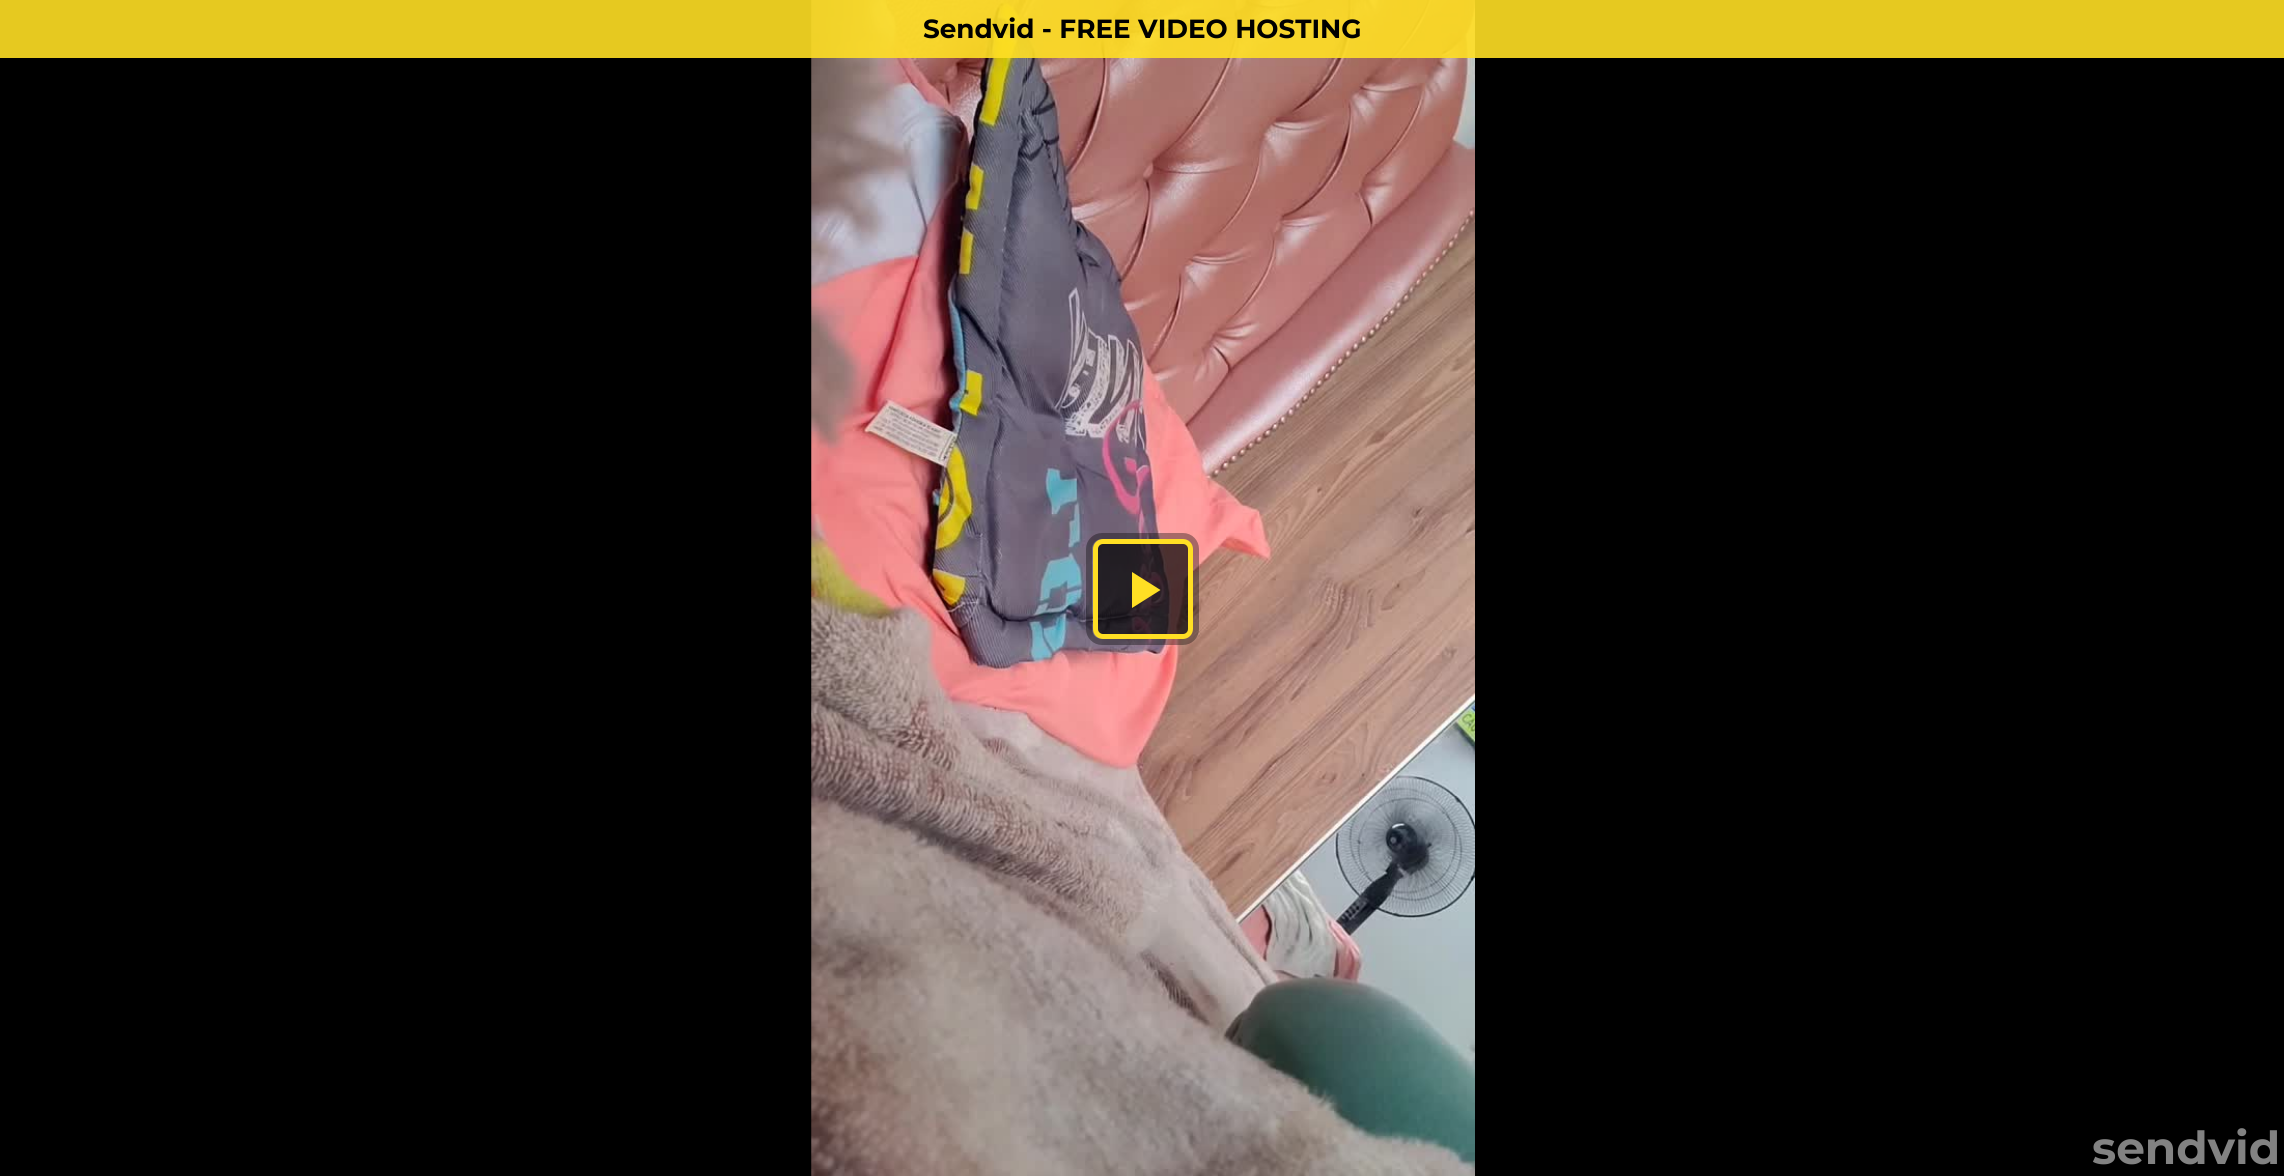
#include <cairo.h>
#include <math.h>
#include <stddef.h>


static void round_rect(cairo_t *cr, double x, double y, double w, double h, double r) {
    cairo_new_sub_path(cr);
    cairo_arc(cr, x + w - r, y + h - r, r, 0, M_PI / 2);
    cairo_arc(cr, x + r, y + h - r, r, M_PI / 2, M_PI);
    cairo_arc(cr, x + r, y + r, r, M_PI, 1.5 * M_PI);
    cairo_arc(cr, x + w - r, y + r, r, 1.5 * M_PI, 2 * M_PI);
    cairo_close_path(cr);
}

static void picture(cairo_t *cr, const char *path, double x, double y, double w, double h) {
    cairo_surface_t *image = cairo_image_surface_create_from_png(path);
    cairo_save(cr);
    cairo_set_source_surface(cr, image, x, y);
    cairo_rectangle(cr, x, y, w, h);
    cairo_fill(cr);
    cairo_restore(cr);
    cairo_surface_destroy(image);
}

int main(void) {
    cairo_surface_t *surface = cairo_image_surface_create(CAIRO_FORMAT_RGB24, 2284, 1176);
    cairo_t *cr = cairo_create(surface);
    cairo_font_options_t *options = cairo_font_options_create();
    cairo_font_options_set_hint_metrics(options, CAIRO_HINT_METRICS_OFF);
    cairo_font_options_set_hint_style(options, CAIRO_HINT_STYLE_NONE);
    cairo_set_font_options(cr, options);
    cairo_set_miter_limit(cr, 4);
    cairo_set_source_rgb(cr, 0, 0, 0);
    cairo_paint(cr);
    picture(cr, "img1.png", 811, 0, 664, 1176);
    cairo_set_source_rgba(cr, 1, 0.875, 0.141, 0.9);
    cairo_rectangle(cr, 0, 0, 2284, 58);
    cairo_fill(cr);
    cairo_select_font_face(cr, "Montserrat", CAIRO_FONT_SLANT_NORMAL, CAIRO_FONT_WEIGHT_BOLD);
    cairo_set_font_size(cr, 26.25);
    cairo_set_source_rgb(cr, 0, 0, 0);
    cairo_move_to(cr, 923, 38);
    cairo_show_text(cr, "Sendvid - FREE VIDEO HOSTING");
    cairo_set_source_rgba(cr, 0, 0, 0, 0.7);
    round_rect(cr, 1095.5, 541.5, 95, 95, 7.5);
    cairo_fill_preserve(cr);
    cairo_set_source_rgb(cr, 1, 0.875, 0.141);
    cairo_set_line_width(cr, 5);
    cairo_stroke(cr);
    round_rect(cr, 1089, 536, 107, 106, 13);
    cairo_set_source_rgba(cr, 0, 0, 0, 0.35);
    cairo_set_line_width(cr, 6);
    cairo_stroke(cr);
    cairo_set_source_rgb(cr, 1, 0.875, 0.141);
    cairo_new_path(cr);
    cairo_move_to(cr, 1132, 572);
    cairo_line_to(cr, 1132, 608);
    cairo_line_to(cr, 1160.5, 590);
    cairo_close_path(cr);
    cairo_fill(cr);
    cairo_set_font_size(cr, 45.5);
    cairo_set_source_rgb(cr, 0.51, 0.51, 0.51);
    cairo_move_to(cr, 2092, 1164);
    cairo_show_text(cr, "sendvid");
    cairo_surface_write_to_png(surface, "page.png");
    cairo_font_options_destroy(options);
    cairo_destroy(cr);
    cairo_surface_destroy(surface);
    return 0;
}
